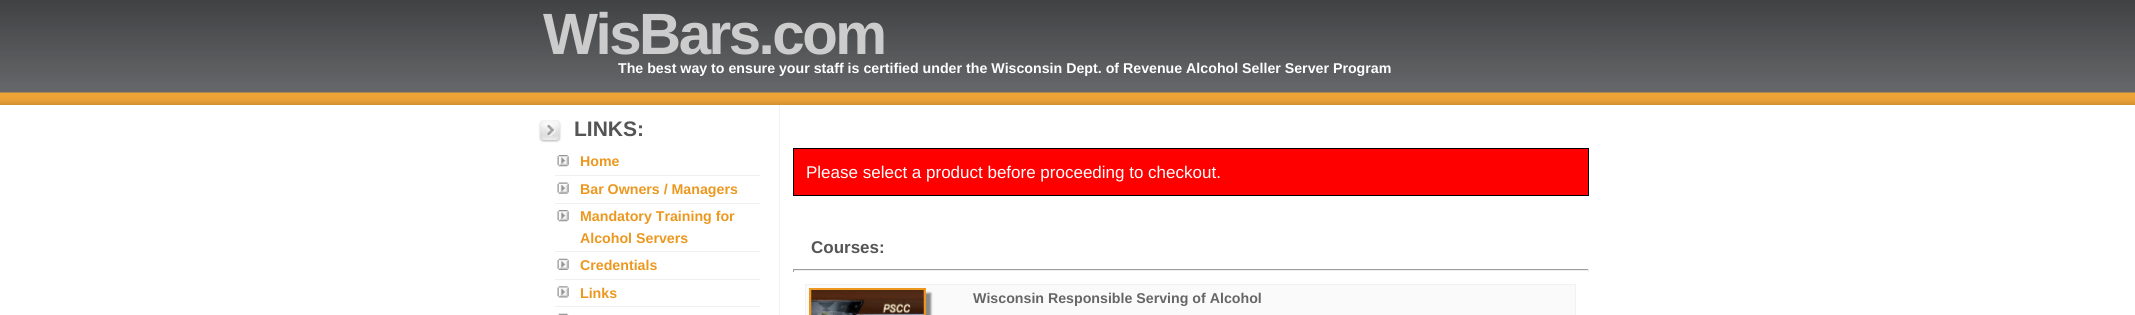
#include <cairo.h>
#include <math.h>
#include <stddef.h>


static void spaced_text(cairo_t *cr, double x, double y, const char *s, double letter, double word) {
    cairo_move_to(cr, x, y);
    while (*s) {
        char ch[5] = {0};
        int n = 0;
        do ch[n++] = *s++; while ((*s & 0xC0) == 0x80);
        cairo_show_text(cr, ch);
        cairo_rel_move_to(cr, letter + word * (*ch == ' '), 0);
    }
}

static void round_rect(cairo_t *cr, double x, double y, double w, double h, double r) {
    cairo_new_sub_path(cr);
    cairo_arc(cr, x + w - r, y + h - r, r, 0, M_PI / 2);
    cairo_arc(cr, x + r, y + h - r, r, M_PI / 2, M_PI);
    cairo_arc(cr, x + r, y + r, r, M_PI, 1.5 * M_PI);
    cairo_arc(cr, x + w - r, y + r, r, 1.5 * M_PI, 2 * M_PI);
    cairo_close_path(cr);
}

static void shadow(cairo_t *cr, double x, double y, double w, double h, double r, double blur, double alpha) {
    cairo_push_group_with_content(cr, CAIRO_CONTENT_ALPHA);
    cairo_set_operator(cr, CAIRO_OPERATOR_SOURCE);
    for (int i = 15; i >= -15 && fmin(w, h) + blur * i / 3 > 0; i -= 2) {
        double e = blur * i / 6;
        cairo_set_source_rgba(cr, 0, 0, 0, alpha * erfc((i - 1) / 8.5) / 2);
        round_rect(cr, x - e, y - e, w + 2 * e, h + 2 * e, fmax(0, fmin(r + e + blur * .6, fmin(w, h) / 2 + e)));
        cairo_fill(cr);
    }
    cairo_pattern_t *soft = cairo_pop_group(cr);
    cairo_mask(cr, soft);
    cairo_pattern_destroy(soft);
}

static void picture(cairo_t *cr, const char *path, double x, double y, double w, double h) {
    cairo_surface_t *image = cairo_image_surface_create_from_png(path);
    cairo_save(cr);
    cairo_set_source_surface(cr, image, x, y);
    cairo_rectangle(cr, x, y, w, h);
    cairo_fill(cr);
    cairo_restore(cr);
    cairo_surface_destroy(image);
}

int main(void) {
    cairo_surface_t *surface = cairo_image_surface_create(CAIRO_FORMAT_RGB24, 2135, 315);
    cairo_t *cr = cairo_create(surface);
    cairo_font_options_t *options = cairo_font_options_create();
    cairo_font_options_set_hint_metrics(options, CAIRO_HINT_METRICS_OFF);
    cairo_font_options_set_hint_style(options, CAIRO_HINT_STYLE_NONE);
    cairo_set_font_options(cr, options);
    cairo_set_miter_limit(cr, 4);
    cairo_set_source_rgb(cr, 1, 1, 1);
    cairo_paint(cr);
    picture(cr, "img1.png", 0, 0, 2135, 105);
    picture(cr, "img2.png", 536, 0, 1063, 105);
    cairo_select_font_face(cr, "Liberation Sans", CAIRO_FONT_SLANT_NORMAL, CAIRO_FONT_WEIGHT_BOLD);
    cairo_set_font_size(cr, 58.25);
    cairo_set_source_rgb(cr, 0.8, 0.8, 0.8);
    spaced_text(cr, 543, 54, "WisBars.com", -2.5, 0);
    cairo_set_font_size(cr, 14.2);
    cairo_set_source_rgb(cr, 1, 1, 1);
    cairo_move_to(cr, 618, 73);
    cairo_show_text(cr, "The best way to ensure your staff is certified under the Wisconsin Dept. of Revenue Alcohol Seller Server Program");
    picture(cr, "img3.png", 538, 120, 24, 23);
    cairo_set_font_size(cr, 21);
    cairo_set_source_rgb(cr, 0.333, 0.333, 0.333);
    cairo_move_to(cr, 574, 136);
    cairo_show_text(cr, "LINKS:");
    picture(cr, "img4.png", 557, 155, 12, 12);
    cairo_set_source_rgb(cr, 0.937, 0.941, 0.945);
    cairo_rectangle(cr, 555, 175, 205, 1);
    cairo_fill(cr);
    cairo_set_font_size(cr, 14.2);
    cairo_set_source_rgb(cr, 0.925, 0.596, 0.122);
    cairo_move_to(cr, 580, 166);
    cairo_show_text(cr, "Home");
    picture(cr, "img5.png", 557, 182, 12, 12);
    cairo_set_source_rgb(cr, 0.937, 0.941, 0.945);
    cairo_rectangle(cr, 555, 203, 205, 1);
    cairo_fill(cr);
    cairo_set_source_rgb(cr, 0.925, 0.596, 0.122);
    cairo_move_to(cr, 580, 194);
    cairo_show_text(cr, "Bar Owners / Managers");
    picture(cr, "img4.png", 557, 210, 12, 12);
    cairo_set_source_rgb(cr, 0.937, 0.941, 0.945);
    cairo_rectangle(cr, 555, 251, 205, 1);
    cairo_fill(cr);
    cairo_set_source_rgb(cr, 0.925, 0.596, 0.122);
    cairo_move_to(cr, 580, 221);
    cairo_show_text(cr, "Mandatory Training for");
    cairo_move_to(cr, 580, 243);
    cairo_show_text(cr, "Alcohol Servers");
    picture(cr, "img6.png", 557, 258, 12, 12);
    cairo_set_source_rgb(cr, 0.937, 0.941, 0.945);
    cairo_rectangle(cr, 555, 279, 205, 1);
    cairo_fill(cr);
    cairo_set_source_rgb(cr, 0.925, 0.596, 0.122);
    cairo_move_to(cr, 580, 270);
    cairo_show_text(cr, "Credentials");
    picture(cr, "img7.png", 557, 286, 12, 12);
    cairo_set_source_rgb(cr, 0.937, 0.941, 0.945);
    cairo_rectangle(cr, 555, 306, 205, 1);
    cairo_fill(cr);
    cairo_set_source_rgb(cr, 0.925, 0.596, 0.122);
    cairo_move_to(cr, 580, 298);
    cairo_show_text(cr, "Links");
    picture(cr, "img8.png", 558, 313, 11, 2);
    cairo_set_source_rgb(cr, 0.949, 0.949, 0.949);
    cairo_rectangle(cr, 779, 105, 1, 210);
    cairo_fill(cr);
    cairo_set_source_rgb(cr, 1, 0, 0);
    cairo_rectangle(cr, 793.5, 148.5, 795, 47);
    cairo_fill_preserve(cr);
    cairo_set_source_rgb(cr, 0, 0, 0);
    cairo_set_line_width(cr, 1);
    cairo_stroke(cr);
    cairo_select_font_face(cr, "Liberation Sans", CAIRO_FONT_SLANT_NORMAL, CAIRO_FONT_WEIGHT_NORMAL);
    cairo_set_font_size(cr, 17);
    cairo_set_source_rgb(cr, 1, 1, 1);
    cairo_move_to(cr, 806, 178);
    cairo_show_text(cr, "Please select a product before proceeding to checkout.");
    cairo_select_font_face(cr, "Liberation Sans", CAIRO_FONT_SLANT_NORMAL, CAIRO_FONT_WEIGHT_BOLD);
    cairo_set_source_rgb(cr, 0.333, 0.333, 0.333);
    cairo_move_to(cr, 811, 253);
    cairo_show_text(cr, "Courses:");
    cairo_set_source_rgb(cr, 0.624, 0.624, 0.624);
    cairo_rectangle(cr, 793, 269, 796, 1);
    cairo_fill(cr);
    cairo_set_source_rgb(cr, 0.933, 0.933, 0.933);
    cairo_rectangle(cr, 1588, 269, 1, 3);
    cairo_fill(cr);
    cairo_rectangle(cr, 793, 270, 796, 1);
    cairo_fill(cr);
    cairo_set_source_rgb(cr, 0.624, 0.624, 0.624);
    cairo_rectangle(cr, 793, 269, 1, 3);
    cairo_fill(cr);
    cairo_set_source_rgb(cr, 0.98, 0.98, 0.98);
    cairo_rectangle(cr, 805.5, 284.5, 770, 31);
    cairo_fill_preserve(cr);
    cairo_set_source_rgb(cr, 0.949, 0.949, 0.949);
    cairo_stroke(cr);
    cairo_set_source_rgb(cr, 0.533, 0.533, 0.533);
    shadow(cr, 814, 293, 117, 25, 0, 1, 1);
    cairo_rectangle(cr, 810.5, 289.5, 114, 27);
    cairo_set_source_rgb(cr, 0.925, 0.596, 0.122);
    cairo_set_line_width(cr, 3);
    cairo_stroke(cr);
    picture(cr, "img9.png", 811, 290, 113, 25);
    cairo_set_font_size(cr, 14.2);
    cairo_set_source_rgb(cr, 0.4, 0.4, 0.4);
    cairo_move_to(cr, 973, 303);
    cairo_show_text(cr, "Wisconsin Responsible Serving of Alcohol");
    cairo_surface_write_to_png(surface, "page.png");
    cairo_font_options_destroy(options);
    cairo_destroy(cr);
    cairo_surface_destroy(surface);
    return 0;
}
